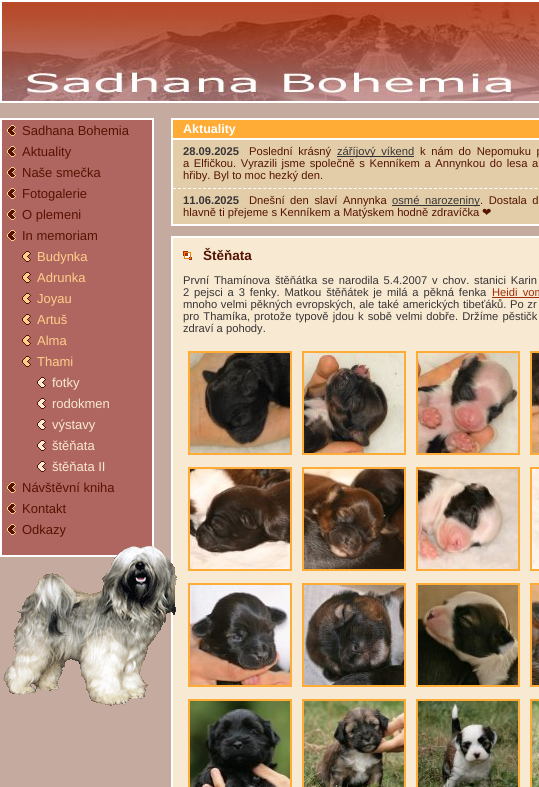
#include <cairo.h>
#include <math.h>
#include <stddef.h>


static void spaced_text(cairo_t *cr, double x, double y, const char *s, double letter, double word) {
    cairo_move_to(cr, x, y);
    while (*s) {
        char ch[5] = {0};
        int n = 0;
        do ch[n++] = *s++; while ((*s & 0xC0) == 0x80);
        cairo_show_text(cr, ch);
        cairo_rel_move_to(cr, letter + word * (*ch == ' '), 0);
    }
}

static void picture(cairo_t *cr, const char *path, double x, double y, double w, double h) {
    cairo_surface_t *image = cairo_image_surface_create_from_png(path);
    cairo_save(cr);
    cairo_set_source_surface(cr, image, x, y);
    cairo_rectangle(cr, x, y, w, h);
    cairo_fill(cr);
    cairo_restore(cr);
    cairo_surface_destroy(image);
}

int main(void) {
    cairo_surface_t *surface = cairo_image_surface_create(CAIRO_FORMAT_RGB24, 539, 787);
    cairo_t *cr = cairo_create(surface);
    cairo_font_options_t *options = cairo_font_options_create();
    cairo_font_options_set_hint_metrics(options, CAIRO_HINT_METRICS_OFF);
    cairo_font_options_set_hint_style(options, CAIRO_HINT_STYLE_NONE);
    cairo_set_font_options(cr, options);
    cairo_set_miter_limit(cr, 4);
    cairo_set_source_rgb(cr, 0.773, 0.667, 0.627);
    cairo_paint(cr);
    picture(cr, "img1.png", 2, 2, 537, 99);
    cairo_rectangle(cr, 1, 1, 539, 101);
    cairo_set_source_rgb(cr, 1, 1, 1);
    cairo_stroke(cr);
    cairo_set_source_rgb(cr, 0.69, 0.4, 0.376);
    cairo_rectangle(cr, 1, 119, 152, 437);
    cairo_fill_preserve(cr);
    cairo_set_source_rgb(cr, 1, 1, 1);
    cairo_stroke(cr);
    picture(cr, "img2.png", 7, 125, 9, 11);
    cairo_select_font_face(cr, "Liberation Sans", CAIRO_FONT_SLANT_NORMAL, CAIRO_FONT_WEIGHT_NORMAL);
    cairo_set_font_size(cr, 13);
    cairo_set_source_rgb(cr, 0.333, 0.078, 0.004);
    cairo_move_to(cr, 22, 135);
    cairo_show_text(cr, "Sadhana Bohemia");
    picture(cr, "img2.png", 7, 146, 9, 11);
    cairo_move_to(cr, 22, 156);
    cairo_show_text(cr, "Aktuality");
    picture(cr, "img2.png", 7, 167, 9, 11);
    cairo_move_to(cr, 22, 177);
    cairo_show_text(cr, "Naše smečka");
    picture(cr, "img2.png", 7, 188, 9, 11);
    cairo_move_to(cr, 22, 198);
    cairo_show_text(cr, "Fotogalerie");
    picture(cr, "img2.png", 7, 209, 9, 11);
    cairo_move_to(cr, 22, 219);
    cairo_show_text(cr, "O plemeni");
    picture(cr, "img2.png", 7, 230, 9, 11);
    cairo_move_to(cr, 22, 240);
    cairo_show_text(cr, "In memoriam");
    picture(cr, "img3.png", 22, 251, 9, 11);
    cairo_set_source_rgb(cr, 1, 0.808, 0.537);
    cairo_move_to(cr, 37, 261);
    cairo_show_text(cr, "Budynka");
    picture(cr, "img3.png", 22, 272, 9, 11);
    cairo_move_to(cr, 37, 282);
    cairo_show_text(cr, "Adrunka");
    picture(cr, "img3.png", 22, 293, 9, 11);
    cairo_move_to(cr, 37, 303);
    cairo_show_text(cr, "Joyau");
    picture(cr, "img3.png", 22, 314, 9, 11);
    cairo_move_to(cr, 37, 324);
    cairo_show_text(cr, "Artuš");
    picture(cr, "img3.png", 22, 335, 9, 11);
    cairo_move_to(cr, 37, 345);
    cairo_show_text(cr, "Alma");
    picture(cr, "img3.png", 22, 356, 9, 11);
    cairo_move_to(cr, 37, 366);
    cairo_show_text(cr, "Thami");
    picture(cr, "img4.png", 37, 377, 9, 11);
    cairo_set_source_rgb(cr, 0.969, 0.914, 0.824);
    cairo_move_to(cr, 52, 387);
    cairo_show_text(cr, "fotky");
    picture(cr, "img4.png", 37, 398, 9, 11);
    cairo_move_to(cr, 52, 408);
    cairo_show_text(cr, "rodokmen");
    picture(cr, "img4.png", 37, 419, 9, 11);
    cairo_move_to(cr, 52, 429);
    cairo_show_text(cr, "výstavy");
    picture(cr, "img4.png", 37, 440, 9, 11);
    cairo_move_to(cr, 52, 450);
    cairo_show_text(cr, "štěňata");
    picture(cr, "img4.png", 37, 461, 9, 11);
    cairo_move_to(cr, 52, 471);
    cairo_show_text(cr, "štěňata II");
    picture(cr, "img2.png", 7, 482, 9, 11);
    cairo_set_source_rgb(cr, 0.333, 0.078, 0.004);
    cairo_move_to(cr, 22, 492);
    cairo_show_text(cr, "Návštěvní kniha");
    picture(cr, "img2.png", 7, 503, 9, 11);
    cairo_move_to(cr, 22, 513);
    cairo_show_text(cr, "Kontakt");
    picture(cr, "img2.png", 7, 524, 9, 11);
    cairo_move_to(cr, 22, 534);
    cairo_show_text(cr, "Odkazy");
    cairo_set_source_rgb(cr, 0.969, 0.914, 0.824);
    cairo_rectangle(cr, 172, 237, 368, 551);
    cairo_fill_preserve(cr);
    cairo_set_source_rgb(cr, 1, 1, 1);
    cairo_stroke(cr);
    picture(cr, "img5.png", 3, 546, 174, 160);
    cairo_set_source_rgb(cr, 0.89, 0.804, 0.663);
    cairo_rectangle(cr, 173, 140, 366, 84);
    cairo_fill(cr);
    cairo_rectangle(cr, 172, 119, 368, 106);
    cairo_set_source_rgb(cr, 1, 1, 1);
    cairo_stroke(cr);
    cairo_rectangle(cr, 173, 138, 366, 2);
    cairo_fill(cr);
    cairo_set_source_rgb(cr, 1, 0.675, 0.216);
    cairo_rectangle(cr, 173, 120, 366, 18);
    cairo_fill(cr);
    cairo_select_font_face(cr, "Liberation Sans", CAIRO_FONT_SLANT_NORMAL, CAIRO_FONT_WEIGHT_BOLD);
    cairo_set_font_size(cr, 12.5);
    cairo_set_source_rgb(cr, 1, 1, 1);
    cairo_move_to(cr, 183, 133);
    cairo_show_text(cr, "Aktuality");
    cairo_set_font_size(cr, 11.2);
    cairo_set_source_rgb(cr, 0.216, 0.204, 0.204);
    cairo_move_to(cr, 183, 155);
    cairo_show_text(cr, "28.09.2025");
    cairo_select_font_face(cr, "Liberation Sans", CAIRO_FONT_SLANT_NORMAL, CAIRO_FONT_WEIGHT_NORMAL);
    cairo_set_source_rgb(cr, 0.333, 0.078, 0.004);
    spaced_text(cr, 249, 155, "Poslední krásný", 0, 2.5);
    cairo_set_source_rgb(cr, 0.216, 0.204, 0.204);
    cairo_rectangle(cr, 337, 156, 77, 1);
    cairo_fill(cr);
    spaced_text(cr, 337, 155, "záříjový víkend", 0, 2.5);
    cairo_set_source_rgb(cr, 0.333, 0.078, 0.004);
    spaced_text(cr, 420, 155, "k nám do Nepomuku p", 0, 2.5);
    spaced_text(cr, 183, 167, "a Elfičkou. Vyrazili jsme společně s Kenníkem a Annynkou do lesa a", 0, 1.5);
    cairo_move_to(cr, 183, 179);
    cairo_show_text(cr, "hřiby. Byl to moc hezký den.");
    cairo_new_path(cr);
    cairo_move_to(cr, 173, 188.5);
    cairo_line_to(cr, 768, 188.5);
    cairo_set_source_rgb(cr, 1, 1, 1);
    cairo_set_line_width(cr, 1);
    cairo_set_dash(cr, (double[]){3, 2.02}, 2, 0);
    cairo_stroke(cr);
    cairo_select_font_face(cr, "Liberation Sans", CAIRO_FONT_SLANT_NORMAL, CAIRO_FONT_WEIGHT_BOLD);
    cairo_set_source_rgb(cr, 0.216, 0.204, 0.204);
    cairo_move_to(cr, 183, 204);
    cairo_show_text(cr, "11.06.2025");
    cairo_select_font_face(cr, "Liberation Sans", CAIRO_FONT_SLANT_NORMAL, CAIRO_FONT_WEIGHT_NORMAL);
    cairo_set_source_rgb(cr, 0.333, 0.078, 0.004);
    spaced_text(cr, 249, 204, "Dnešní den slaví Annynka", 0, 2.5);
    cairo_set_source_rgb(cr, 0.216, 0.204, 0.204);
    cairo_rectangle(cr, 392, 205, 88, 1);
    cairo_fill(cr);
    spaced_text(cr, 392, 204, "osmé narozeniny", 0, 2.5);
    cairo_set_source_rgb(cr, 0.333, 0.078, 0.004);
    spaced_text(cr, 480, 204, ". Dostala d", 0, 2.5);
    cairo_move_to(cr, 183, 216);
    cairo_show_text(cr, "hlavně ti přejeme s Kenníkem a Matýskem hodně zdravíčka");
    cairo_select_font_face(cr, "DejaVu Sans", CAIRO_FONT_SLANT_NORMAL, CAIRO_FONT_WEIGHT_NORMAL);
    cairo_move_to(cr, 482, 216);
    cairo_show_text(cr, "❤");
    picture(cr, "img6.png", 183, 251, 9, 9);
    cairo_select_font_face(cr, "Liberation Sans", CAIRO_FONT_SLANT_NORMAL, CAIRO_FONT_WEIGHT_BOLD);
    cairo_set_font_size(cr, 13.5);
    cairo_move_to(cr, 203, 260);
    cairo_show_text(cr, "Štěňata");
    cairo_select_font_face(cr, "Liberation Sans", CAIRO_FONT_SLANT_NORMAL, CAIRO_FONT_WEIGHT_NORMAL);
    cairo_set_font_size(cr, 11.2);
    cairo_set_source_rgb(cr, 0.216, 0.204, 0.204);
    spaced_text(cr, 183, 284, "První Thamínova štěňátka se narodila 5.4.2007 v chov. stanici Karin", 0, 1.75);
    spaced_text(cr, 183, 296, "2 pejsci a 3 fenky. Matkou štěňátek je milá a pěkná fenka", 0, 1.75);
    cairo_set_source_rgb(cr, 0.631, 0.18, 0.051);
    spaced_text(cr, 492, 296, "Heidi vom", 0, 2);
    cairo_rectangle(cr, 492, 297, 47, 1);
    cairo_fill(cr);
    cairo_set_source_rgb(cr, 0.216, 0.204, 0.204);
    spaced_text(cr, 183, 308, "mnoho velmi pěkných evropských, ale také amerických tibeťáků. Po zr", 0, 0.5);
    spaced_text(cr, 183, 320, "pro Thamíka, protože typově jdou k sobě velmi dobře. Držíme pěstičk", 0, 1);
    cairo_move_to(cr, 183, 332);
    cairo_show_text(cr, "zdraví a pohody.");
    cairo_rectangle(cr, 189, 352, 102, 102);
    cairo_set_source_rgb(cr, 1, 0.675, 0.216);
    cairo_set_line_width(cr, 2);
    cairo_set_dash(cr, NULL, 0, 0);
    cairo_stroke(cr);
    cairo_rectangle(cr, 303, 352, 102, 102);
    cairo_stroke(cr);
    cairo_rectangle(cr, 417, 352, 102, 102);
    cairo_stroke(cr);
    cairo_rectangle(cr, 531, 352, 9, 102);
    cairo_stroke(cr);
    picture(cr, "img7.png", 190, 353, 100, 100);
    picture(cr, "img8.png", 304, 353, 100, 100);
    picture(cr, "img9.png", 418, 353, 100, 100);
    picture(cr, "img10.png", 532, 353, 7, 100);
    cairo_rectangle(cr, 189, 468, 102, 102);
    cairo_stroke(cr);
    cairo_rectangle(cr, 303, 468, 102, 102);
    cairo_stroke(cr);
    cairo_rectangle(cr, 417, 468, 102, 102);
    cairo_stroke(cr);
    cairo_rectangle(cr, 531, 468, 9, 102);
    cairo_stroke(cr);
    picture(cr, "img11.png", 190, 469, 100, 100);
    picture(cr, "img12.png", 304, 469, 100, 100);
    picture(cr, "img13.png", 418, 469, 100, 100);
    picture(cr, "img14.png", 532, 469, 7, 100);
    cairo_rectangle(cr, 189, 584, 102, 102);
    cairo_stroke(cr);
    cairo_rectangle(cr, 303, 584, 102, 102);
    cairo_stroke(cr);
    cairo_rectangle(cr, 417, 584, 102, 102);
    cairo_stroke(cr);
    cairo_rectangle(cr, 531, 584, 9, 102);
    cairo_stroke(cr);
    picture(cr, "img15.png", 190, 585, 100, 100);
    picture(cr, "img16.png", 304, 585, 100, 100);
    picture(cr, "img17.png", 418, 585, 100, 100);
    picture(cr, "img18.png", 532, 585, 7, 100);
    cairo_rectangle(cr, 189, 700, 102, 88);
    cairo_stroke(cr);
    cairo_rectangle(cr, 303, 700, 102, 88);
    cairo_stroke(cr);
    cairo_rectangle(cr, 417, 700, 102, 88);
    cairo_stroke(cr);
    cairo_rectangle(cr, 531, 700, 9, 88);
    cairo_stroke(cr);
    picture(cr, "img19.png", 190, 701, 100, 86);
    picture(cr, "img20.png", 304, 701, 100, 86);
    picture(cr, "img21.png", 418, 701, 100, 86);
    picture(cr, "img22.png", 532, 701, 7, 86);
    cairo_surface_write_to_png(surface, "page.png");
    cairo_font_options_destroy(options);
    cairo_destroy(cr);
    cairo_surface_destroy(surface);
    return 0;
}
